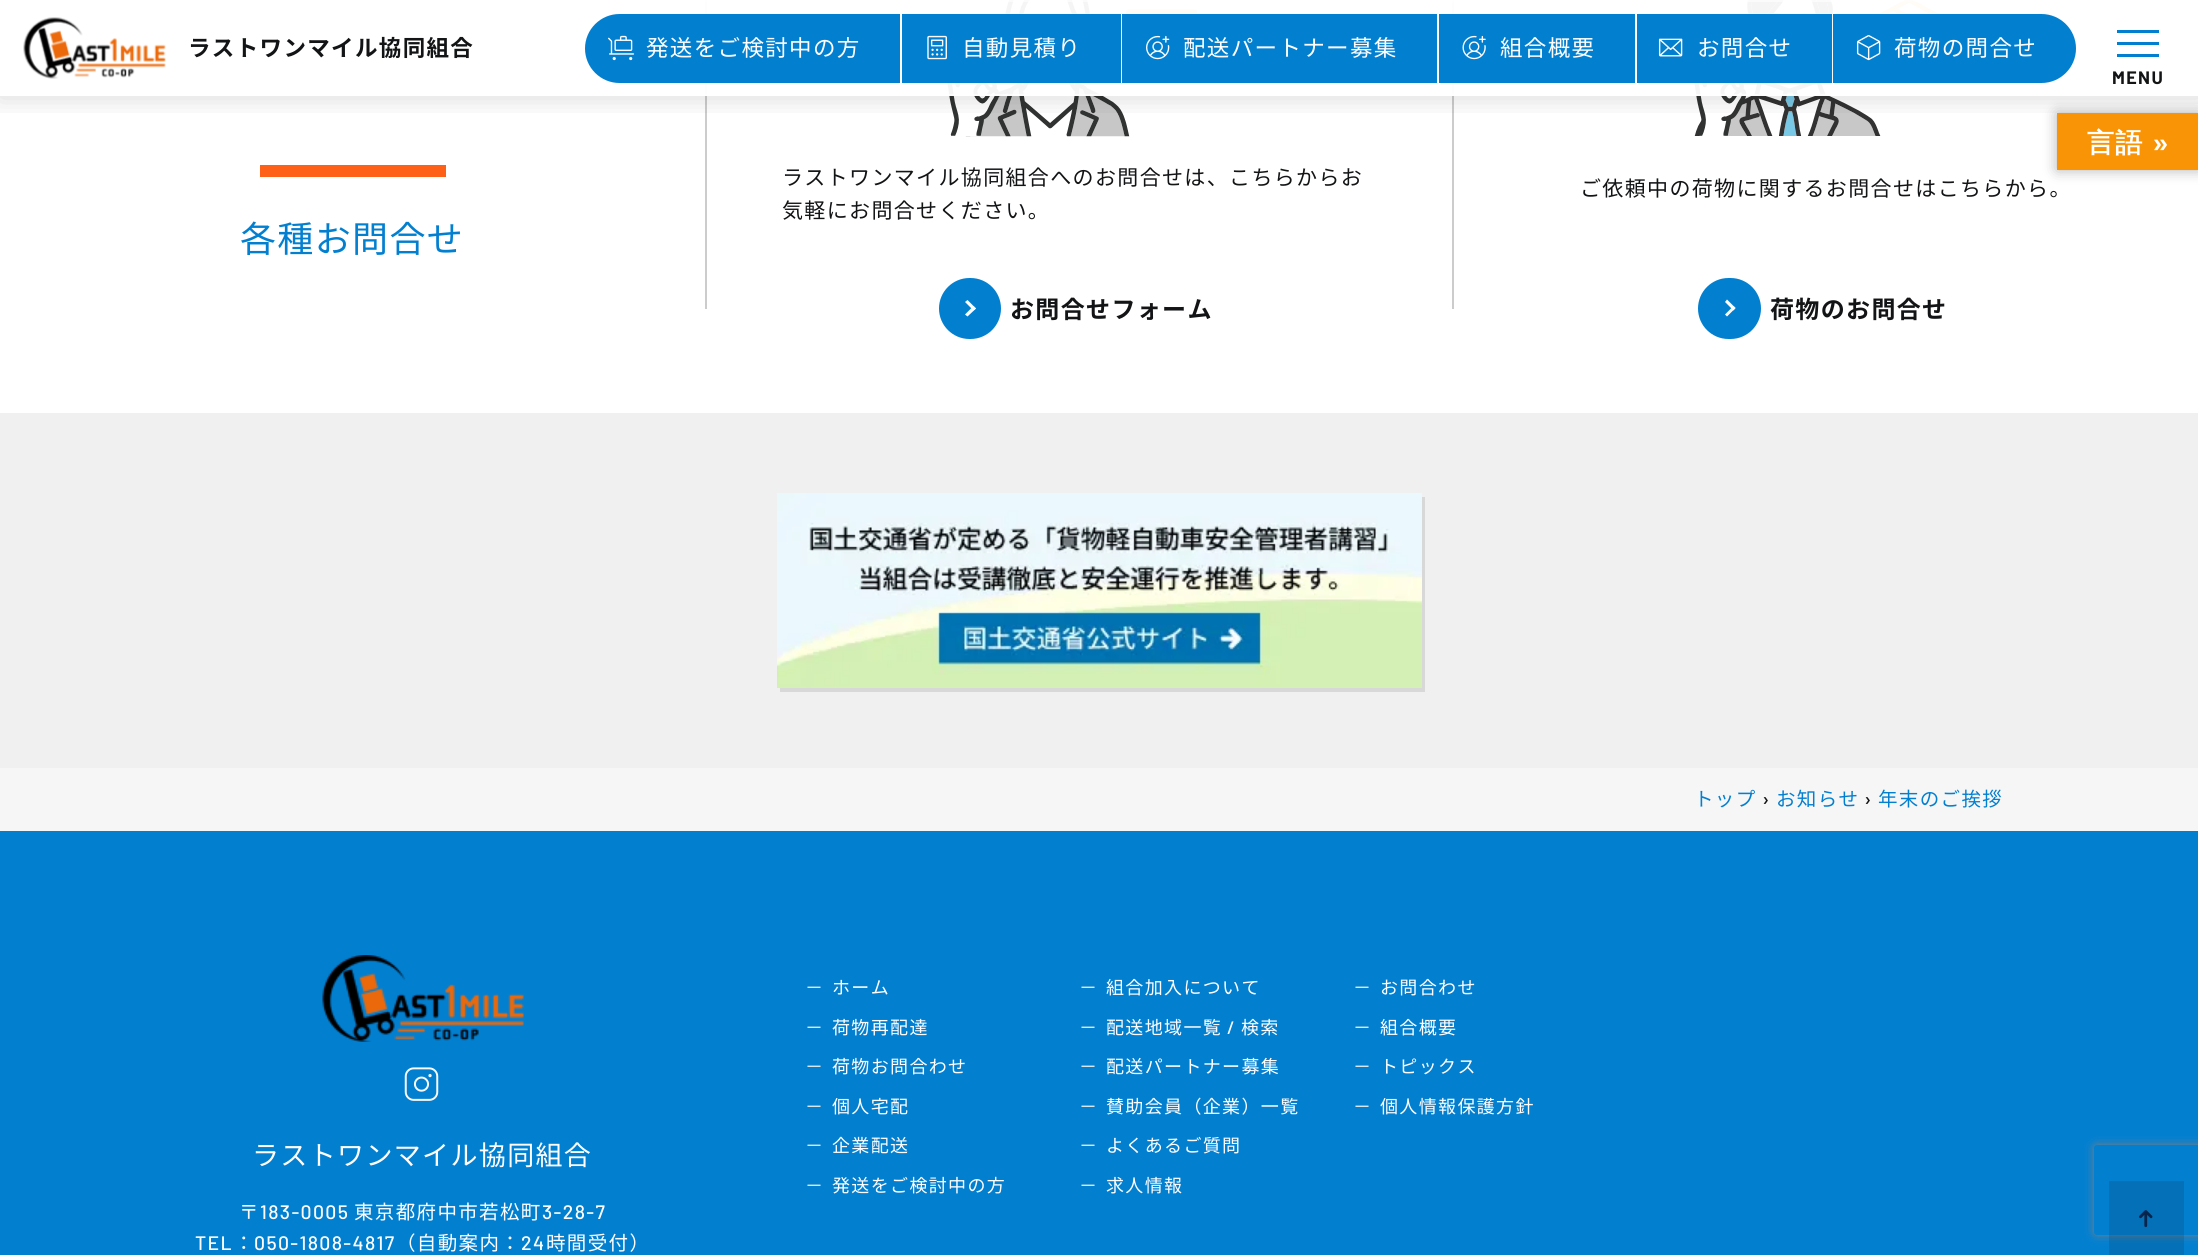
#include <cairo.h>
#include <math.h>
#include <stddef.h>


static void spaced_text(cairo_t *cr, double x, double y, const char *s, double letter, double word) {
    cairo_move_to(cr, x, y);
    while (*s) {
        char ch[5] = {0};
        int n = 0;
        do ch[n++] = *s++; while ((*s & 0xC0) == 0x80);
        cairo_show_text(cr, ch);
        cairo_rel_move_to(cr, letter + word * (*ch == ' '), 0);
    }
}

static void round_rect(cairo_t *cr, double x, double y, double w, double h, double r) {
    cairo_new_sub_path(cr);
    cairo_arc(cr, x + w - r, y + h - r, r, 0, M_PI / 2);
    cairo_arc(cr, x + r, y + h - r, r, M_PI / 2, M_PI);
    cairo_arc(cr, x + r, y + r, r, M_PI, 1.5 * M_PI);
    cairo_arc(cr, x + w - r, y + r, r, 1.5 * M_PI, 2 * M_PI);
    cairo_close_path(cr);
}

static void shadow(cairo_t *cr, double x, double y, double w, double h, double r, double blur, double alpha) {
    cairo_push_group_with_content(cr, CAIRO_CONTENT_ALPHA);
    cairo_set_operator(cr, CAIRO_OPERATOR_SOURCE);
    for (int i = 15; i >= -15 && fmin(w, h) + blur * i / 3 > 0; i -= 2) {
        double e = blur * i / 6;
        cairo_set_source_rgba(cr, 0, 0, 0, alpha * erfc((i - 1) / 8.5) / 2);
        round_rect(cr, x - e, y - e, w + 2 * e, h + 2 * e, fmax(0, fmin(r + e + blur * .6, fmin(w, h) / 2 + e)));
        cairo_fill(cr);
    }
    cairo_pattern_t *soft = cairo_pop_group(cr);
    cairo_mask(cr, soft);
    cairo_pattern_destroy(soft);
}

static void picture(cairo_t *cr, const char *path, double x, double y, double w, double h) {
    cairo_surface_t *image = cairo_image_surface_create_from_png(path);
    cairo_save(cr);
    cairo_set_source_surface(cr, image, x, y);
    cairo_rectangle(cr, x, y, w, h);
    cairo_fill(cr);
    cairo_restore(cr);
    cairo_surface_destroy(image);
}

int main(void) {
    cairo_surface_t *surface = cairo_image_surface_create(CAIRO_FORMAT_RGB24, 2198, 1255);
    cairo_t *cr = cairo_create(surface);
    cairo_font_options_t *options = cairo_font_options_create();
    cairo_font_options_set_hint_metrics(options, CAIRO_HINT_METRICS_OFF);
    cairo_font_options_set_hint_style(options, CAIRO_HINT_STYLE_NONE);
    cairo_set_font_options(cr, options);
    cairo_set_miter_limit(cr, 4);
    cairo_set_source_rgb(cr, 1, 1, 1);
    cairo_paint(cr);
    cairo_set_source_rgb(cr, 0, 0, 0);
    shadow(cr, 2057, 113, 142, 57, 0, 7, 0.3);
    cairo_set_source_rgb(cr, 0.973, 0.58, 0.024);
    cairo_rectangle(cr, 2057, 113, 141, 57);
    cairo_fill(cr);
    cairo_set_source_rgb(cr, 0.8, 0.8, 0.8);
    cairo_rectangle(cr, 705, 0, 2, 309);
    cairo_fill(cr);
    picture(cr, "img10.png", 947, 0, 250, 137);
    cairo_rectangle(cr, 1452, 0, 2, 309);
    cairo_fill(cr);
    picture(cr, "img11.png", 1694, 0, 245, 136);
    cairo_save(cr);
    cairo_rectangle(cr, 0, 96, 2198, 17);
    cairo_clip(cr);
    cairo_set_source_rgb(cr, 0, 0, 0);
    shadow(cr, -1, -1, 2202, 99, 0, 13.5, 0.15);
    cairo_restore(cr);
    cairo_set_source_rgba(cr, 1, 1, 1, 0.95);
    cairo_rectangle(cr, 705, 0, 1234, 96);
    cairo_fill(cr);
    cairo_rectangle(cr, 1, 1, 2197, 94);
    cairo_set_source_rgba(cr, 1, 1, 1, 0.6);
    cairo_stroke(cr);
    picture(cr, "img1.png", 23, 17, 143, 62);
    cairo_select_font_face(cr, "Noto Sans CJK JP", CAIRO_FONT_SLANT_NORMAL, CAIRO_FONT_WEIGHT_BOLD);
    cairo_set_font_size(cr, 22.5);
    cairo_set_source_rgb(cr, 0.075, 0.082, 0.086);
    spaced_text(cr, 188, 56, "ラストワンマイル協同組合", 1.35, 0);
    cairo_set_source_rgb(cr, 0.012, 0.498, 0.816);
    cairo_new_path(cr);
    cairo_move_to(cr, 619.5, 14);
    cairo_line_to(cr, 900, 14);
    cairo_line_to(cr, 900, 83);
    cairo_line_to(cr, 619.5, 83);
    cairo_curve_to(cr, 600.5, 83, 585, 67.5, 585, 48.5);
    cairo_curve_to(cr, 585, 29.5, 600.5, 14, 619.5, 14);
    cairo_close_path(cr);
    cairo_fill(cr);
    picture(cr, "img2.png", 608, 35, 27, 26);
    cairo_select_font_face(cr, "Noto Sans CJK JP", CAIRO_FONT_SLANT_NORMAL, CAIRO_FONT_WEIGHT_NORMAL);
    cairo_set_source_rgb(cr, 1, 1, 1);
    spaced_text(cr, 646, 56, "発送をご検討中の方", 1.35, 0);
    cairo_set_source_rgb(cr, 0.012, 0.498, 0.816);
    cairo_rectangle(cr, 902, 14, 219, 69);
    cairo_fill(cr);
    picture(cr, "img3.png", 927, 35, 20, 25);
    cairo_set_source_rgb(cr, 1, 1, 1);
    spaced_text(cr, 962, 56, "自動見積り", 1.35, 0);
    cairo_set_source_rgb(cr, 0.012, 0.498, 0.816);
    cairo_rectangle(cr, 1122, 14, 315, 69);
    cairo_fill(cr);
    picture(cr, "img4.png", 1146, 35, 24, 25);
    cairo_set_source_rgb(cr, 1, 1, 1);
    spaced_text(cr, 1183, 56, "配送パートナー募集", 1.35, 0);
    cairo_set_source_rgb(cr, 0.012, 0.498, 0.816);
    cairo_rectangle(cr, 1439, 14, 196, 69);
    cairo_fill(cr);
    picture(cr, "img5.png", 1462, 35, 24, 25);
    cairo_set_source_rgb(cr, 1, 1, 1);
    spaced_text(cr, 1500, 56, "組合概要", 1.35, 0);
    cairo_set_source_rgb(cr, 0.012, 0.498, 0.816);
    cairo_rectangle(cr, 1637, 14, 195, 69);
    cairo_fill(cr);
    picture(cr, "img6.png", 1658, 38, 25, 19);
    cairo_set_source_rgb(cr, 1, 1, 1);
    spaced_text(cr, 1697, 56, "お問合せ", 1.35, 0);
    cairo_set_source_rgb(cr, 0.012, 0.498, 0.816);
    cairo_new_path(cr);
    cairo_move_to(cr, 1833, 14);
    cairo_line_to(cr, 2041.5, 14);
    cairo_curve_to(cr, 2060.5, 14, 2076, 29.5, 2076, 48.5);
    cairo_curve_to(cr, 2076, 67.5, 2060.5, 83, 2041.5, 83);
    cairo_line_to(cr, 1833, 83);
    cairo_close_path(cr);
    cairo_fill(cr);
    picture(cr, "img7.png", 1856, 35, 25, 26);
    cairo_set_source_rgb(cr, 1, 1, 1);
    spaced_text(cr, 1894, 56, "荷物の問合せ", 1.35, 0);
    cairo_set_source_rgb(cr, 0.012, 0.498, 0.816);
    cairo_rectangle(cr, 2117, 42, 42, 3);
    cairo_fill(cr);
    cairo_rectangle(cr, 2117, 30, 42, 3);
    cairo_fill(cr);
    cairo_rectangle(cr, 2117, 54, 42, 3);
    cairo_fill(cr);
    cairo_select_font_face(cr, "Barlow", CAIRO_FONT_SLANT_NORMAL, CAIRO_FONT_WEIGHT_BOLD);
    cairo_set_font_size(cr, 18);
    cairo_set_source_rgb(cr, 0.075, 0.082, 0.086);
    spaced_text(cr, 2112, 84, "MENU", 1.35, 0);
    cairo_set_source_rgb(cr, 0.012, 0.498, 0.816);
    cairo_rectangle(cr, 0, 831, 2198, 424);
    cairo_fill(cr);
    cairo_select_font_face(cr, "WenQuanYi Zen Hei", CAIRO_FONT_SLANT_NORMAL, CAIRO_FONT_WEIGHT_BOLD);
    cairo_set_font_size(cr, 27);
    cairo_set_source_rgb(cr, 1, 1, 1);
    spaced_text(cr, 2087, 152, "言語", 1.35, 0);
    cairo_select_font_face(cr, "Liberation Sans", CAIRO_FONT_SLANT_NORMAL, CAIRO_FONT_WEIGHT_BOLD);
    spaced_text(cr, 2153, 152, "»", 1.35, 0);
    picture(cr, "img8.png", 322, 955, 202, 87);
    picture(cr, "img9.png", 404, 1067, 35, 34);
    cairo_select_font_face(cr, "Noto Sans CJK JP", CAIRO_FONT_SLANT_NORMAL, CAIRO_FONT_WEIGHT_NORMAL);
    spaced_text(cr, 252, 1165, "ラストワンマイル協同組合", 1.35, 0);
    cairo_set_font_size(cr, 19.5);
    spaced_text(cr, 239, 1219, "〒", 1.35, 0);
    cairo_select_font_face(cr, "Barlow Medium", CAIRO_FONT_SLANT_NORMAL, CAIRO_FONT_WEIGHT_NORMAL);
    spaced_text(cr, 260, 1219, "183-0005", 1.35, 0);
    cairo_select_font_face(cr, "Noto Sans CJK JP", CAIRO_FONT_SLANT_NORMAL, CAIRO_FONT_WEIGHT_NORMAL);
    spaced_text(cr, 354, 1219, "東京都府中市若松町", 1.35, 0);
    cairo_select_font_face(cr, "Barlow Medium", CAIRO_FONT_SLANT_NORMAL, CAIRO_FONT_WEIGHT_NORMAL);
    spaced_text(cr, 542, 1219, "3-28-7", 1.35, 0);
    spaced_text(cr, 195, 1250, "TEL", 1.35, 0);
    cairo_select_font_face(cr, "Noto Sans CJK JP", CAIRO_FONT_SLANT_NORMAL, CAIRO_FONT_WEIGHT_NORMAL);
    spaced_text(cr, 234, 1250, "：", 1.35, 0);
    cairo_select_font_face(cr, "Barlow Medium", CAIRO_FONT_SLANT_NORMAL, CAIRO_FONT_WEIGHT_NORMAL);
    spaced_text(cr, 254, 1250, "050-1808-4817", 1.35, 0);
    cairo_select_font_face(cr, "Noto Sans CJK JP", CAIRO_FONT_SLANT_NORMAL, CAIRO_FONT_WEIGHT_NORMAL);
    spaced_text(cr, 396, 1250, "（自動案内：", 1.35, 0);
    cairo_select_font_face(cr, "Barlow Medium", CAIRO_FONT_SLANT_NORMAL, CAIRO_FONT_WEIGHT_NORMAL);
    spaced_text(cr, 521, 1250, "24", 1.35, 0);
    cairo_select_font_face(cr, "Noto Sans CJK JP", CAIRO_FONT_SLANT_NORMAL, CAIRO_FONT_WEIGHT_NORMAL);
    spaced_text(cr, 546, 1250, "時間受付）", 1.35, 0);
    cairo_set_font_size(cr, 18);
    cairo_set_source_rgb(cr, 0.969, 0.965, 0.929);
    spaced_text(cr, 805, 994, "－", 1.35, 0);
    cairo_set_source_rgb(cr, 1, 1, 1);
    spaced_text(cr, 832, 994, "ホーム", 1.35, 0);
    cairo_set_source_rgb(cr, 0.969, 0.965, 0.929);
    spaced_text(cr, 1079, 994, "－", 1.35, 0);
    cairo_set_source_rgb(cr, 1, 1, 1);
    spaced_text(cr, 1106, 994, "組合加入について", 1.35, 0);
    cairo_set_source_rgb(cr, 0.969, 0.965, 0.929);
    spaced_text(cr, 1353, 994, "－", 1.35, 0);
    cairo_set_source_rgb(cr, 1, 1, 1);
    spaced_text(cr, 1380, 994, "お問合わせ", 1.35, 0);
    cairo_set_source_rgb(cr, 0.969, 0.965, 0.929);
    spaced_text(cr, 805, 1034, "－", 1.35, 0);
    cairo_set_source_rgb(cr, 1, 1, 1);
    spaced_text(cr, 832, 1034, "荷物再配達", 1.35, 0);
    cairo_set_source_rgb(cr, 0.969, 0.965, 0.929);
    spaced_text(cr, 1079, 1034, "－", 1.35, 0);
    cairo_set_source_rgb(cr, 1, 1, 1);
    spaced_text(cr, 1106, 1034, "配送地域一覧", 1.35, 0);
    cairo_select_font_face(cr, "Barlow Medium", CAIRO_FONT_SLANT_NORMAL, CAIRO_FONT_WEIGHT_NORMAL);
    spaced_text(cr, 1227, 1034, "/", 1.35, 0);
    cairo_select_font_face(cr, "Noto Sans CJK JP", CAIRO_FONT_SLANT_NORMAL, CAIRO_FONT_WEIGHT_NORMAL);
    spaced_text(cr, 1241, 1034, "検索", 1.35, 0);
    cairo_set_source_rgb(cr, 0.969, 0.965, 0.929);
    spaced_text(cr, 1353, 1034, "－", 1.35, 0);
    cairo_set_source_rgb(cr, 1, 1, 1);
    spaced_text(cr, 1380, 1034, "組合概要", 1.35, 0);
    cairo_set_source_rgb(cr, 0.969, 0.965, 0.929);
    spaced_text(cr, 805, 1073, "－", 1.35, 0);
    cairo_set_source_rgb(cr, 1, 1, 1);
    spaced_text(cr, 832, 1073, "荷物お問合わせ", 1.35, 0);
    cairo_set_source_rgb(cr, 0.969, 0.965, 0.929);
    spaced_text(cr, 1079, 1073, "－", 1.35, 0);
    cairo_set_source_rgb(cr, 1, 1, 1);
    spaced_text(cr, 1106, 1073, "配送パートナー募集", 1.35, 0);
    cairo_set_source_rgb(cr, 0.969, 0.965, 0.929);
    spaced_text(cr, 1353, 1073, "－", 1.35, 0);
    cairo_set_source_rgb(cr, 1, 1, 1);
    spaced_text(cr, 1380, 1073, "トピックス", 1.35, 0);
    cairo_set_source_rgb(cr, 0.969, 0.965, 0.929);
    spaced_text(cr, 805, 1113, "－", 1.35, 0);
    cairo_set_source_rgb(cr, 1, 1, 1);
    spaced_text(cr, 832, 1113, "個人宅配", 1.35, 0);
    cairo_set_source_rgb(cr, 0.969, 0.965, 0.929);
    spaced_text(cr, 1079, 1113, "－", 1.35, 0);
    cairo_set_source_rgb(cr, 1, 1, 1);
    spaced_text(cr, 1106, 1113, "賛助会員（企業）一覧", 1.35, 0);
    cairo_set_source_rgb(cr, 0.969, 0.965, 0.929);
    spaced_text(cr, 1353, 1113, "－", 1.35, 0);
    cairo_set_source_rgb(cr, 1, 1, 1);
    spaced_text(cr, 1380, 1113, "個人情報保護方針", 1.35, 0);
    cairo_set_source_rgb(cr, 0.969, 0.965, 0.929);
    spaced_text(cr, 805, 1152, "－", 1.35, 0);
    cairo_set_source_rgb(cr, 1, 1, 1);
    spaced_text(cr, 832, 1152, "企業配送", 1.35, 0);
    cairo_set_source_rgb(cr, 0.969, 0.965, 0.929);
    spaced_text(cr, 1079, 1152, "－", 1.35, 0);
    cairo_set_source_rgb(cr, 1, 1, 1);
    spaced_text(cr, 1106, 1152, "よくあるご質問", 1.35, 0);
    cairo_set_source_rgb(cr, 0.969, 0.965, 0.929);
    spaced_text(cr, 805, 1192, "－", 1.35, 0);
    cairo_set_source_rgb(cr, 1, 1, 1);
    spaced_text(cr, 832, 1192, "発送をご検討中の方", 1.35, 0);
    cairo_set_source_rgb(cr, 0.969, 0.965, 0.929);
    spaced_text(cr, 1079, 1192, "－", 1.35, 0);
    cairo_set_source_rgb(cr, 1, 1, 1);
    spaced_text(cr, 1106, 1192, "求人情報", 1.35, 0);
    cairo_set_source_rgb(cr, 1, 0.376, 0.09);
    cairo_rectangle(cr, 260, 165, 186, 12);
    cairo_fill(cr);
    cairo_set_font_size(cr, 36);
    cairo_set_source_rgb(cr, 0.012, 0.498, 0.816);
    spaced_text(cr, 240, 252, "各種お問合せ", 1.35, 0);
    cairo_set_font_size(cr, 21);
    cairo_set_source_rgb(cr, 0.075, 0.082, 0.086);
    spaced_text(cr, 782, 185, "ラストワンマイル協同組合へのお問合せは、こちらからお", 1.35, 0);
    spaced_text(cr, 782, 218, "気軽にお問合せください。", 1.35, 0);
    cairo_set_source_rgb(cr, 0.012, 0.498, 0.816);
    round_rect(cr, 939, 278, 62, 61, 30.5);
    cairo_fill(cr);
    cairo_select_font_face(cr, "Noto Sans CJK JP", CAIRO_FONT_SLANT_NORMAL, CAIRO_FONT_WEIGHT_BOLD);
    cairo_set_font_size(cr, 24);
    cairo_set_source_rgb(cr, 0.075, 0.082, 0.086);
    spaced_text(cr, 1010, 318, "お問合せフォーム", 1.35, 0);
    cairo_set_source_rgb(cr, 1, 1, 1);
    cairo_new_path(cr);
    cairo_move_to(cr, 967.5, 300);
    cairo_line_to(cr, 976, 308.5);
    cairo_line_to(cr, 973.5, 310.5);
    cairo_line_to(cr, 965, 302);
    cairo_close_path(cr);
    cairo_fill(cr);
    cairo_new_path(cr);
    cairo_move_to(cr, 973.5, 306);
    cairo_line_to(cr, 976, 308.5);
    cairo_line_to(cr, 967.5, 316.5);
    cairo_line_to(cr, 965, 314.5);
    cairo_close_path(cr);
    cairo_fill(cr);
    cairo_select_font_face(cr, "Noto Sans CJK JP", CAIRO_FONT_SLANT_NORMAL, CAIRO_FONT_WEIGHT_NORMAL);
    cairo_set_font_size(cr, 21);
    cairo_set_source_rgb(cr, 0.075, 0.082, 0.086);
    spaced_text(cr, 1580, 196, "ご依頼中の荷物に関するお問合せはこちらから。", 1.35, 0);
    cairo_set_source_rgb(cr, 0.012, 0.498, 0.816);
    round_rect(cr, 1698, 278, 63, 61, 30.5);
    cairo_fill(cr);
    cairo_select_font_face(cr, "Noto Sans CJK JP", CAIRO_FONT_SLANT_NORMAL, CAIRO_FONT_WEIGHT_BOLD);
    cairo_set_font_size(cr, 24);
    cairo_set_source_rgb(cr, 0.075, 0.082, 0.086);
    spaced_text(cr, 1770, 318, "荷物のお問合せ", 1.35, 0);
    cairo_set_source_rgb(cr, 1, 1, 1);
    cairo_new_path(cr);
    cairo_move_to(cr, 1727, 299.5);
    cairo_line_to(cr, 1735.5, 308);
    cairo_line_to(cr, 1733.5, 310.5);
    cairo_line_to(cr, 1725, 302);
    cairo_close_path(cr);
    cairo_fill(cr);
    cairo_new_path(cr);
    cairo_move_to(cr, 1733.5, 306);
    cairo_line_to(cr, 1735.5, 308);
    cairo_line_to(cr, 1727, 316.5);
    cairo_line_to(cr, 1725, 314.5);
    cairo_close_path(cr);
    cairo_fill(cr);
    cairo_set_source_rgb(cr, 0.941, 0.941, 0.941);
    cairo_rectangle(cr, 0, 413, 2198, 355);
    cairo_fill(cr);
    cairo_set_source_rgb(cr, 0.847, 0.847, 0.847);
    cairo_new_path(cr);
    cairo_move_to(cr, 780, 688);
    cairo_line_to(cr, 780, 692);
    cairo_line_to(cr, 1425, 692);
    cairo_line_to(cr, 1425, 497);
    cairo_line_to(cr, 1422, 497);
    cairo_line_to(cr, 1422, 688);
    cairo_close_path(cr);
    cairo_fill(cr);
    picture(cr, "img12.png", 777, 493, 645, 195);
    cairo_set_source_rgb(cr, 0.961, 0.961, 0.961);
    cairo_rectangle(cr, 0, 768, 2198, 63);
    cairo_fill(cr);
    cairo_select_font_face(cr, "Noto Sans CJK JP", CAIRO_FONT_SLANT_NORMAL, CAIRO_FONT_WEIGHT_NORMAL);
    cairo_set_font_size(cr, 19.5);
    cairo_set_source_rgb(cr, 0.012, 0.498, 0.816);
    spaced_text(cr, 1694, 806, "トップ", 1.35, 0);
    cairo_select_font_face(cr, "Barlow Medium", CAIRO_FONT_SLANT_NORMAL, CAIRO_FONT_WEIGHT_NORMAL);
    cairo_set_source_rgb(cr, 0.075, 0.082, 0.086);
    spaced_text(cr, 1762, 806, "›", 1.35, 0);
    cairo_select_font_face(cr, "Noto Sans CJK JP", CAIRO_FONT_SLANT_NORMAL, CAIRO_FONT_WEIGHT_NORMAL);
    cairo_set_source_rgb(cr, 0.012, 0.498, 0.816);
    spaced_text(cr, 1776, 806, "お知らせ", 1.35, 0);
    cairo_select_font_face(cr, "Barlow Medium", CAIRO_FONT_SLANT_NORMAL, CAIRO_FONT_WEIGHT_NORMAL);
    cairo_set_source_rgb(cr, 0.075, 0.082, 0.086);
    spaced_text(cr, 1864, 806, "›", 1.35, 0);
    cairo_select_font_face(cr, "Noto Sans CJK JP", CAIRO_FONT_SLANT_NORMAL, CAIRO_FONT_WEIGHT_NORMAL);
    cairo_set_source_rgb(cr, 0.012, 0.498, 0.816);
    spaced_text(cr, 1878, 806, "年末のご挨拶", 1.35, 0);
    cairo_save(cr);
    cairo_set_fill_rule(cr, CAIRO_FILL_RULE_EVEN_ODD);
    cairo_new_path(cr);
    cairo_move_to(cr, 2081, 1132);
    cairo_line_to(cr, 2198, 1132);
    cairo_line_to(cr, 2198, 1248);
    cairo_line_to(cr, 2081, 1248);
    cairo_close_path(cr);
    cairo_move_to(cr, 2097, 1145);
    cairo_line_to(cr, 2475, 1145);
    cairo_curve_to(cr, 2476.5, 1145, 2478, 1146.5, 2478, 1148);
    cairo_line_to(cr, 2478, 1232);
    cairo_curve_to(cr, 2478, 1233.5, 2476.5, 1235, 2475, 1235);
    cairo_line_to(cr, 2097, 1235);
    cairo_curve_to(cr, 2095.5, 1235, 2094, 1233.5, 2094, 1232);
    cairo_line_to(cr, 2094, 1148);
    cairo_curve_to(cr, 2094, 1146.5, 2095.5, 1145, 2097, 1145);
    cairo_close_path(cr);
    cairo_clip(cr);
    cairo_set_source_rgb(cr, 0.502, 0.502, 0.502);
    shadow(cr, 2094, 1145, 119, 90, 3, 4, 1);
    cairo_restore(cr);
    cairo_set_source_rgba(cr, 0, 0, 0, 0.12);
    cairo_rectangle(cr, 2109, 1181, 75, 74);
    cairo_fill(cr);
    picture(cr, "img13.png", 2139, 1210, 14, 18);
    cairo_surface_write_to_png(surface, "page.png");
    cairo_font_options_destroy(options);
    cairo_destroy(cr);
    cairo_surface_destroy(surface);
    return 0;
}
